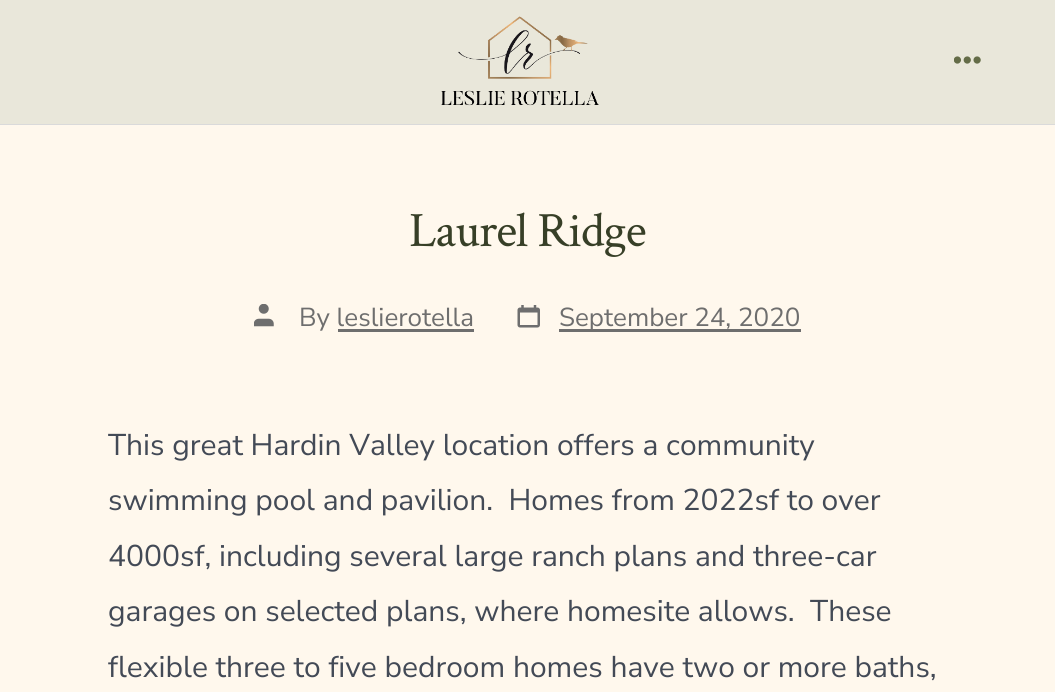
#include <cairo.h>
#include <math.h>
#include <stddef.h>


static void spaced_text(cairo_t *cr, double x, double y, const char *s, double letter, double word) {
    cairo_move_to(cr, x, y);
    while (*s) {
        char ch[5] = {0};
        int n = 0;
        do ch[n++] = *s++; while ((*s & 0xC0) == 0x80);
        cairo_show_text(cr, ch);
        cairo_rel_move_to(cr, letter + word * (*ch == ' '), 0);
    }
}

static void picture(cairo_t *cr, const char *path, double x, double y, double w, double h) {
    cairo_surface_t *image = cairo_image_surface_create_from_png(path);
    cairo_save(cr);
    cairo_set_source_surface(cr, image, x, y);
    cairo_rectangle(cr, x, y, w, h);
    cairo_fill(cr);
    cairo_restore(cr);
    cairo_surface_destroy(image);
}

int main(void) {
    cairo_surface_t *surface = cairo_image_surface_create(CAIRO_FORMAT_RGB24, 1055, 692);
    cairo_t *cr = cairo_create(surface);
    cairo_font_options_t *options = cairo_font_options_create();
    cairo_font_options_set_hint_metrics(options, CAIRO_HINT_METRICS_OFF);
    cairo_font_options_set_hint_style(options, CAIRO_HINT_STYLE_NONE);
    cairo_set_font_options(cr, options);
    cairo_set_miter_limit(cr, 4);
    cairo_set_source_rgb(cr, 1, 0.969, 0.929);
    cairo_paint(cr);
    cairo_set_source_rgb(cr, 0.914, 0.906, 0.855);
    cairo_rectangle(cr, 0, 0, 1055, 124);
    cairo_fill(cr);
    cairo_set_source_rgb(cr, 0.855, 0.855, 0.855);
    cairo_rectangle(cr, 0, 124, 1055, 1);
    cairo_fill(cr);
    picture(cr, "img1.png", 441, 16, 158, 90);
    picture(cr, "img2.png", 954, 56, 27, 8);
    cairo_select_font_face(cr, "Crimson Text", CAIRO_FONT_SLANT_NORMAL, CAIRO_FONT_WEIGHT_NORMAL);
    cairo_set_font_size(cr, 49.5);
    cairo_set_source_rgb(cr, 0.216, 0.247, 0.153);
    spaced_text(cr, 409, 246, "Laurel Ridge", -1, 0);
    picture(cr, "img3.png", 254, 304, 20, 23);
    cairo_select_font_face(cr, "Nunito Sans", CAIRO_FONT_SLANT_NORMAL, CAIRO_FONT_WEIGHT_NORMAL);
    cairo_set_font_size(cr, 26);
    cairo_set_source_rgb(cr, 0.431, 0.431, 0.431);
    cairo_move_to(cr, 299, 326);
    cairo_show_text(cr, "By leslierotella");
    cairo_rectangle(cr, 338, 329, 136, 3);
    cairo_fill(cr);
    picture(cr, "img4.png", 517, 305, 23, 23);
    cairo_rectangle(cr, 559, 329, 242, 3);
    cairo_fill(cr);
    cairo_move_to(cr, 559, 326);
    cairo_show_text(cr, "September 24, 2020");
    cairo_set_font_size(cr, 30);
    cairo_set_source_rgb(cr, 0.263, 0.29, 0.337);
    cairo_move_to(cr, 108, 455);
    cairo_show_text(cr, "This great Hardin Valley location offers a community");
    cairo_move_to(cr, 108, 510);
    cairo_show_text(cr, "swimming pool and pavilion.  Homes from 2022sf to over");
    cairo_move_to(cr, 108, 566);
    cairo_show_text(cr, "4000sf, including several large ranch plans and three-car");
    cairo_move_to(cr, 108, 621);
    cairo_show_text(cr, "garages on selected plans, where homesite allows.  These");
    cairo_move_to(cr, 108, 677);
    cairo_show_text(cr, "flexible three to five bedroom homes have two or more baths,");
    cairo_surface_write_to_png(surface, "page.png");
    cairo_font_options_destroy(options);
    cairo_destroy(cr);
    cairo_surface_destroy(surface);
    return 0;
}
